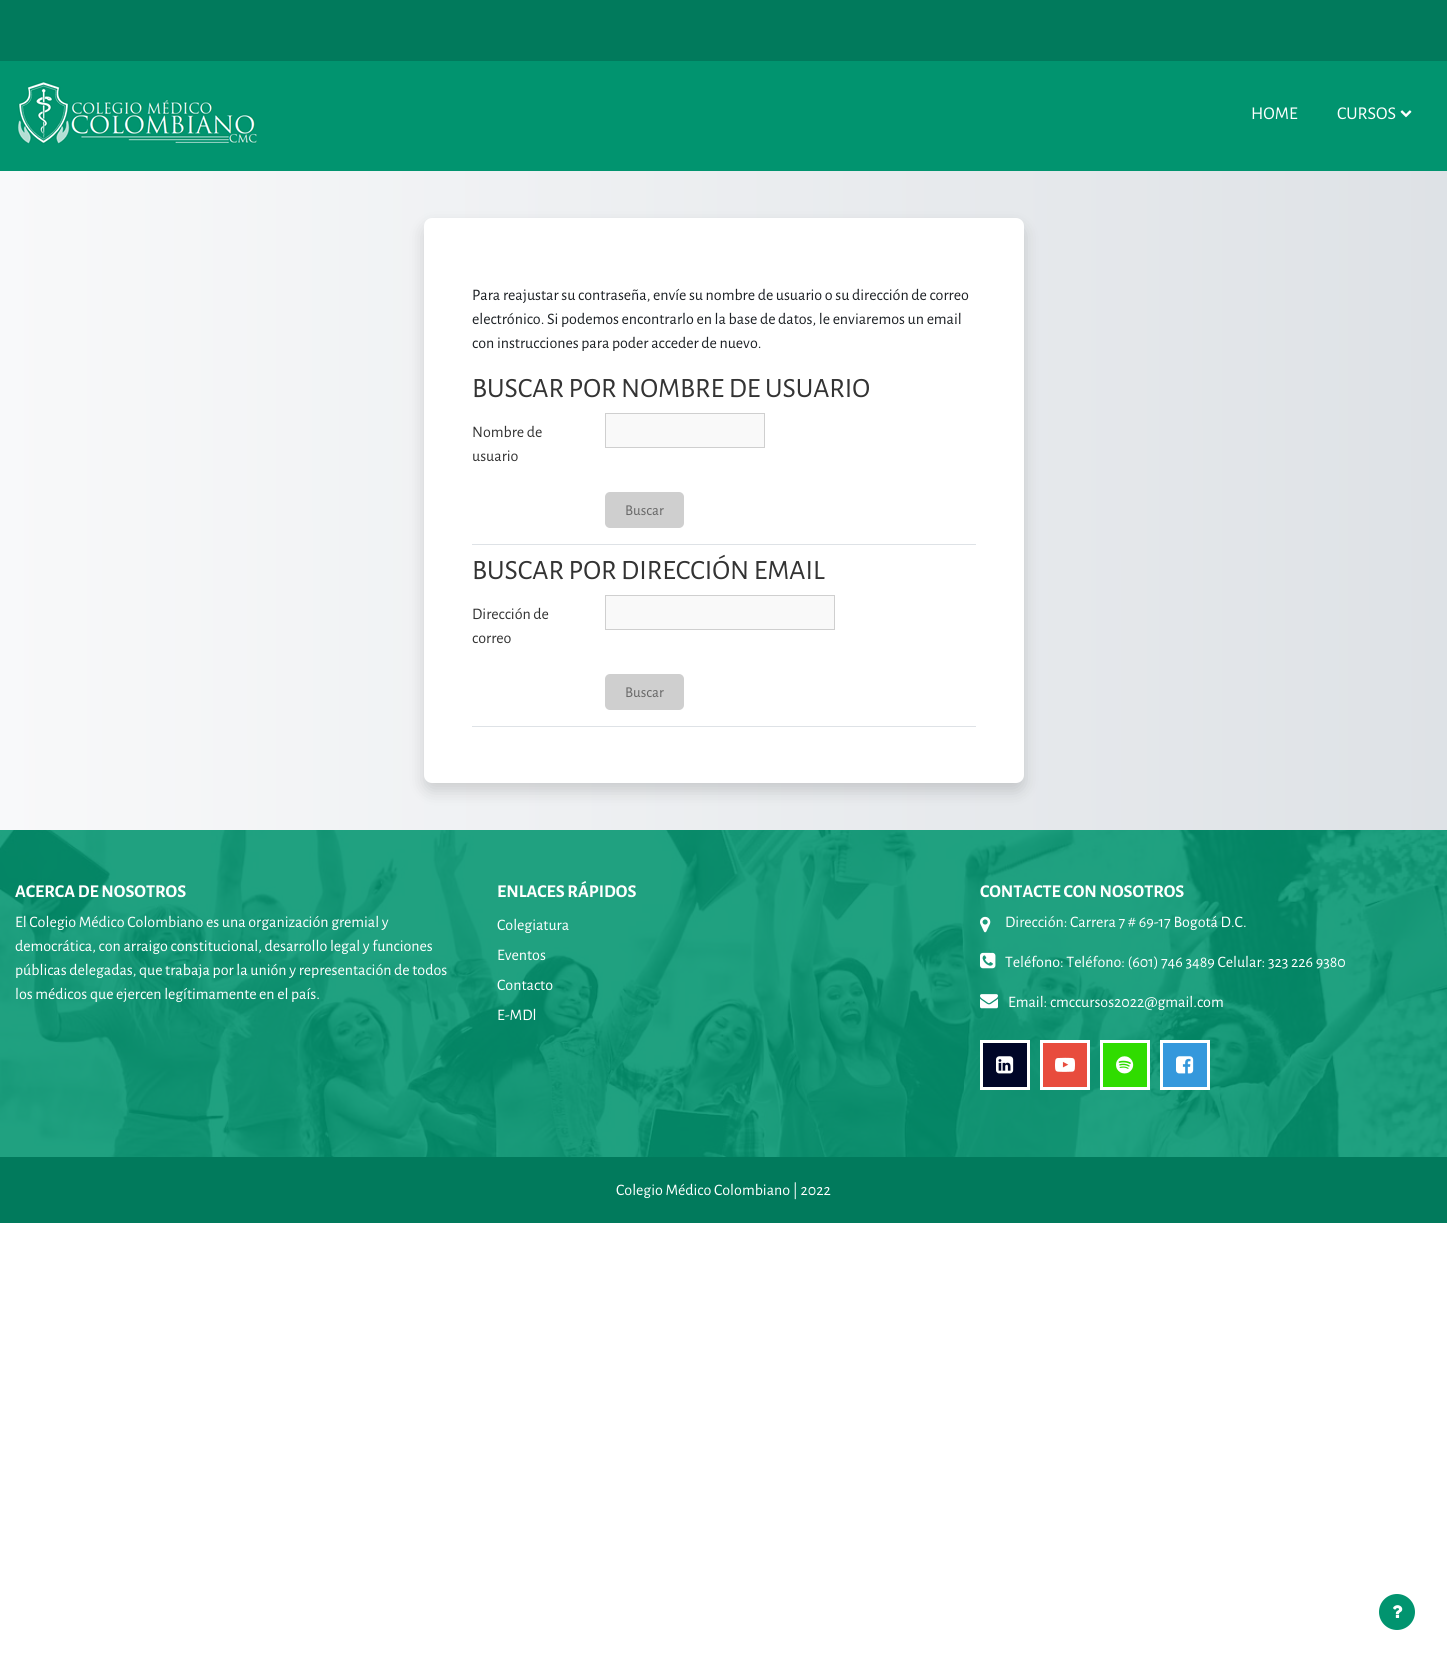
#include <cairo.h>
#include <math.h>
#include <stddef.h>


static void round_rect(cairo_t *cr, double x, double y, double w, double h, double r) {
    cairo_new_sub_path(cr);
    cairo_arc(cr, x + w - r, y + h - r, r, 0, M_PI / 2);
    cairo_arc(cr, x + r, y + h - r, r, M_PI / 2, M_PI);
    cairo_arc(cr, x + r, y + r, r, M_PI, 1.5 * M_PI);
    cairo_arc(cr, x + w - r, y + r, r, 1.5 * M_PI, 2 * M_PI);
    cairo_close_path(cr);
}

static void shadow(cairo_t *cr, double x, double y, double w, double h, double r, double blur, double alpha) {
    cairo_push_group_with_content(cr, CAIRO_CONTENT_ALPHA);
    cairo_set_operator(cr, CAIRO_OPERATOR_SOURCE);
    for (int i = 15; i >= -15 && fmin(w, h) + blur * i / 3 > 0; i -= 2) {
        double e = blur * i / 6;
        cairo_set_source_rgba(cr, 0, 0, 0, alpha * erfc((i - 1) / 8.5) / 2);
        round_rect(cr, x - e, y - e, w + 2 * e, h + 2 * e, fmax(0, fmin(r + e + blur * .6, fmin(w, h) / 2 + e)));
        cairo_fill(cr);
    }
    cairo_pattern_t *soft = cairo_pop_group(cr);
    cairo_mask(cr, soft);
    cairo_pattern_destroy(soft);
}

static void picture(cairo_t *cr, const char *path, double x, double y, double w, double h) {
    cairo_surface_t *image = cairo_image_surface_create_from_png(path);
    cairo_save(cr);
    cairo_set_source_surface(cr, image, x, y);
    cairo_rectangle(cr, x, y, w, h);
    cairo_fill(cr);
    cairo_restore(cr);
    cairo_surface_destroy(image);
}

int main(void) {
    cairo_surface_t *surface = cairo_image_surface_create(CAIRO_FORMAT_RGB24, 1447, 1662);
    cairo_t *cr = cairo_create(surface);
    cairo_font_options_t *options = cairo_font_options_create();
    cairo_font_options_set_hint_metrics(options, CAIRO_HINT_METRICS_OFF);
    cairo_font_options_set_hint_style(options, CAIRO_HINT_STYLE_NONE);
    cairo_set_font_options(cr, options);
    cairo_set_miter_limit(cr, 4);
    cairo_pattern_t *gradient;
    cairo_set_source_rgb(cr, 1, 1, 1);
    cairo_paint(cr);
    cairo_set_source_rgb(cr, 0.004, 0.478, 0.361);
    cairo_rectangle(cr, 0, 0, 1447, 61);
    cairo_fill(cr);
    cairo_set_source_rgb(cr, 0.004, 0.58, 0.435);
    cairo_rectangle(cr, 0, 61, 1447, 110);
    cairo_fill(cr);
    picture(cr, "img1.png", 17, 81, 240, 63);
    cairo_select_font_face(cr, "Alegreya Sans", CAIRO_FONT_SLANT_NORMAL, CAIRO_FONT_WEIGHT_NORMAL);
    cairo_set_font_size(cr, 18);
    cairo_set_source_rgb(cr, 1, 1, 1);
    cairo_move_to(cr, 1251, 119);
    cairo_show_text(cr, "HOME");
    cairo_move_to(cr, 1337, 119);
    cairo_show_text(cr, "CURSOS");
    picture(cr, "img2.png", 1400, 110, 12, 8);
    gradient = cairo_pattern_create_linear(0, 501, 1447, 500);
    cairo_pattern_add_color_stop_rgba(gradient, 0, 0.973, 0.976, 0.98, 1);
    cairo_pattern_add_color_stop_rgba(gradient, 1, 0.871, 0.886, 0.902, 1);
    cairo_set_source(cr, gradient);
    cairo_pattern_destroy(gradient);
    cairo_rectangle(cr, 0, 171, 1447, 659);
    cairo_fill(cr);
    cairo_set_source_rgb(cr, 0, 0, 0);
    shadow(cr, 424, 226, 600, 565, 8, 8, 0.15);
    cairo_set_source_rgb(cr, 1, 1, 1);
    round_rect(cr, 424, 218, 600, 565, 8);
    cairo_fill(cr);
    cairo_set_font_size(cr, 16);
    cairo_set_source_rgb(cr, 0.114, 0.129, 0.145);
    cairo_move_to(cr, 472, 300);
    cairo_show_text(cr, "Para reajustar su contraseña, envíe su nombre de usuario o su dirección de correo");
    cairo_move_to(cr, 472, 324);
    cairo_show_text(cr, "electrónico. Si podemos encontrarlo en la base de datos, le enviaremos un email");
    cairo_move_to(cr, 472, 348);
    cairo_show_text(cr, "con instrucciones para poder acceder de nuevo.");
    cairo_set_source_rgb(cr, 0.871, 0.886, 0.902);
    cairo_rectangle(cr, 472, 544, 504, 1);
    cairo_fill(cr);
    cairo_set_font_size(cr, 28);
    cairo_set_source_rgb(cr, 0.2, 0.2, 0.2);
    cairo_move_to(cr, 472, 397);
    cairo_show_text(cr, "BUSCAR POR NOMBRE DE USUARIO");
    cairo_set_font_size(cr, 16);
    cairo_move_to(cr, 472, 437);
    cairo_show_text(cr, "Nombre de");
    cairo_move_to(cr, 472, 461);
    cairo_show_text(cr, "usuario");
    cairo_set_source_rgb(cr, 0.973, 0.973, 0.973);
    cairo_rectangle(cr, 605.5, 413.5, 159, 34);
    cairo_fill_preserve(cr);
    cairo_set_source_rgb(cr, 0.812, 0.812, 0.812);
    cairo_set_line_width(cr, 1);
    cairo_stroke(cr);
    round_rect(cr, 605, 492, 79, 36, 5);
    cairo_fill(cr);
    cairo_set_font_size(cr, 15);
    cairo_set_source_rgb(cr, 0.404, 0.404, 0.404);
    cairo_move_to(cr, 625, 515);
    cairo_show_text(cr, "Buscar");
    cairo_set_source_rgb(cr, 0.871, 0.886, 0.902);
    cairo_rectangle(cr, 472, 726, 504, 1);
    cairo_fill(cr);
    cairo_set_font_size(cr, 28);
    cairo_set_source_rgb(cr, 0.2, 0.2, 0.2);
    cairo_move_to(cr, 472, 579);
    cairo_show_text(cr, "BUSCAR POR DIRECCIÓN EMAIL");
    cairo_set_font_size(cr, 16);
    cairo_move_to(cr, 472, 619);
    cairo_show_text(cr, "Dirección de");
    cairo_move_to(cr, 472, 643);
    cairo_show_text(cr, "correo");
    cairo_set_source_rgb(cr, 0.973, 0.973, 0.973);
    cairo_rectangle(cr, 605.5, 595.5, 229, 34);
    cairo_fill_preserve(cr);
    cairo_set_source_rgb(cr, 0.812, 0.812, 0.812);
    cairo_stroke(cr);
    round_rect(cr, 605, 674, 79, 36, 5);
    cairo_fill(cr);
    cairo_set_font_size(cr, 15);
    cairo_set_source_rgb(cr, 0.404, 0.404, 0.404);
    cairo_move_to(cr, 625, 697);
    cairo_show_text(cr, "Buscar");
    picture(cr, "img3.png", 0, 830, 1447, 327);
    cairo_select_font_face(cr, "Alegreya Sans", CAIRO_FONT_SLANT_NORMAL, CAIRO_FONT_WEIGHT_BOLD);
    cairo_set_font_size(cr, 18);
    cairo_set_source_rgb(cr, 1, 1, 1);
    cairo_move_to(cr, 15, 897);
    cairo_show_text(cr, "ACERCA DE NOSOTROS");
    cairo_select_font_face(cr, "Alegreya Sans", CAIRO_FONT_SLANT_NORMAL, CAIRO_FONT_WEIGHT_NORMAL);
    cairo_set_font_size(cr, 16);
    cairo_move_to(cr, 15, 927);
    cairo_show_text(cr, "El Colegio Médico Colombiano es una organización gremial y");
    cairo_move_to(cr, 15, 951);
    cairo_show_text(cr, "democrática, con arraigo constitucional, desarrollo legal y funciones");
    cairo_move_to(cr, 15, 975);
    cairo_show_text(cr, "públicas delegadas, que trabaja por la unión y representación de todos");
    cairo_move_to(cr, 15, 999);
    cairo_show_text(cr, "los médicos que ejercen legítimamente en el país.");
    cairo_select_font_face(cr, "Alegreya Sans", CAIRO_FONT_SLANT_NORMAL, CAIRO_FONT_WEIGHT_BOLD);
    cairo_set_font_size(cr, 18);
    cairo_move_to(cr, 497, 897);
    cairo_show_text(cr, "ENLACES RÁPIDOS");
    cairo_select_font_face(cr, "Alegreya Sans", CAIRO_FONT_SLANT_NORMAL, CAIRO_FONT_WEIGHT_NORMAL);
    cairo_set_font_size(cr, 16);
    cairo_move_to(cr, 497, 930);
    cairo_show_text(cr, "Colegiatura");
    cairo_move_to(cr, 497, 960);
    cairo_show_text(cr, "Eventos");
    cairo_move_to(cr, 497, 990);
    cairo_show_text(cr, "Contacto");
    cairo_move_to(cr, 497, 1020);
    cairo_show_text(cr, "E-MDl");
    cairo_select_font_face(cr, "Alegreya Sans", CAIRO_FONT_SLANT_NORMAL, CAIRO_FONT_WEIGHT_BOLD);
    cairo_set_font_size(cr, 18);
    cairo_move_to(cr, 980, 897);
    cairo_show_text(cr, "CONTACTE CON NOSOTROS");
    picture(cr, "img4.png", 980, 916, 11, 17);
    cairo_select_font_face(cr, "Alegreya Sans", CAIRO_FONT_SLANT_NORMAL, CAIRO_FONT_WEIGHT_NORMAL);
    cairo_set_font_size(cr, 16);
    cairo_move_to(cr, 1005, 927);
    cairo_show_text(cr, "Dirección: Carrera 7 # 69-17 Bogotá D.C.");
    picture(cr, "img5.png", 980, 952, 16, 17);
    cairo_move_to(cr, 1005, 967);
    cairo_show_text(cr, "Teléfono: Teléfono: (601) 746 3489 Celular: 323 226 9380");
    picture(cr, "img6.png", 980, 994, 18, 15);
    cairo_move_to(cr, 1008, 1007);
    cairo_show_text(cr, "Email: cmccursos2022@gmail.com");
    cairo_set_source_rgb(cr, 0, 0.024, 0.157);
    cairo_rectangle(cr, 981.5, 1041.5, 47, 47);
    cairo_fill_preserve(cr);
    cairo_set_source_rgb(cr, 1, 1, 1);
    cairo_set_line_width(cr, 3);
    cairo_stroke(cr);
    picture(cr, "img7.png", 996, 1056, 18, 18);
    cairo_set_source_rgb(cr, 0.91, 0.298, 0.239);
    cairo_rectangle(cr, 1041.5, 1041.5, 47, 47);
    cairo_fill_preserve(cr);
    cairo_set_source_rgb(cr, 1, 1, 1);
    cairo_stroke(cr);
    picture(cr, "img8.png", 1055, 1057, 20, 15);
    cairo_set_source_rgb(cr, 0.188, 0.863, 0);
    cairo_rectangle(cr, 1101.5, 1041.5, 47, 47);
    cairo_fill_preserve(cr);
    cairo_set_source_rgb(cr, 1, 1, 1);
    cairo_stroke(cr);
    picture(cr, "img9.png", 1116, 1056, 18, 18);
    cairo_set_source_rgb(cr, 0.208, 0.596, 0.863);
    cairo_rectangle(cr, 1161.5, 1041.5, 47, 47);
    cairo_fill_preserve(cr);
    cairo_set_source_rgb(cr, 1, 1, 1);
    cairo_stroke(cr);
    picture(cr, "img10.png", 1176, 1056, 18, 18);
    cairo_set_source_rgb(cr, 0.004, 0.478, 0.361);
    cairo_rectangle(cr, 0, 1157, 1447, 66);
    cairo_fill(cr);
    cairo_set_source_rgb(cr, 1, 1, 1);
    cairo_move_to(cr, 616, 1195);
    cairo_show_text(cr, "Colegio Médico Colombiano | 2022");
    cairo_set_source_rgb(cr, 0.004, 0.58, 0.435);
    cairo_new_path(cr);
    cairo_arc(cr, 1397, 1612, 18, 0, 2 * M_PI);
    cairo_fill(cr);
    picture(cr, "img11.png", 1393, 1605, 10, 13);
    cairo_surface_write_to_png(surface, "page.png");
    cairo_font_options_destroy(options);
    cairo_destroy(cr);
    cairo_surface_destroy(surface);
    return 0;
}
